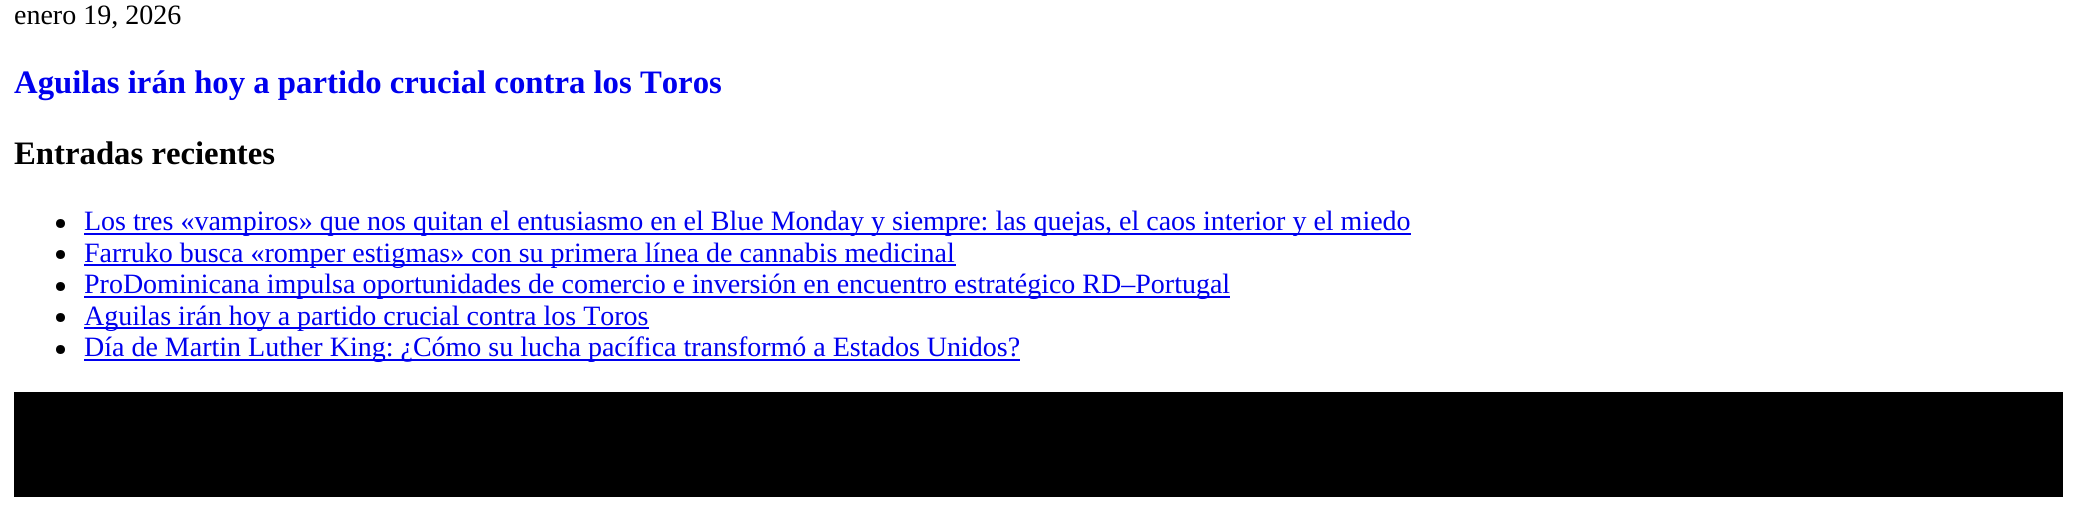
#include <cairo.h>
#include <math.h>
#include <stddef.h>


int main(void) {
    cairo_surface_t *surface = cairo_image_surface_create(CAIRO_FORMAT_RGB24, 2076, 510);
    cairo_t *cr = cairo_create(surface);
    cairo_font_options_t *options = cairo_font_options_create();
    cairo_font_options_set_hint_metrics(options, CAIRO_HINT_METRICS_OFF);
    cairo_font_options_set_hint_style(options, CAIRO_HINT_STYLE_NONE);
    cairo_set_font_options(cr, options);
    cairo_set_miter_limit(cr, 4);
    cairo_set_source_rgb(cr, 1, 1, 1);
    cairo_paint(cr);
    cairo_select_font_face(cr, "Liberation Serif", CAIRO_FONT_SLANT_NORMAL, CAIRO_FONT_WEIGHT_NORMAL);
    cairo_set_font_size(cr, 28);
    cairo_set_source_rgb(cr, 0, 0, 0);
    cairo_move_to(cr, 14, 24);
    cairo_show_text(cr, "enero 19, 2026");
    cairo_select_font_face(cr, "Liberation Serif", CAIRO_FONT_SLANT_NORMAL, CAIRO_FONT_WEIGHT_BOLD);
    cairo_set_font_size(cr, 32.75);
    cairo_set_source_rgb(cr, 0, 0, 0.933);
    cairo_move_to(cr, 14, 93);
    cairo_show_text(cr, "Aguilas irán hoy a partido crucial contra los Toros");
    cairo_set_source_rgb(cr, 0, 0, 0);
    cairo_move_to(cr, 14, 164);
    cairo_show_text(cr, "Entradas recientes");
    cairo_new_path(cr);
    cairo_arc(cr, 60.5, 223.5, 4.5, 0, 2 * M_PI);
    cairo_fill(cr);
    cairo_set_source_rgb(cr, 0, 0, 0.933);
    cairo_rectangle(cr, 84, 233, 1327, 2);
    cairo_fill(cr);
    cairo_select_font_face(cr, "Liberation Serif", CAIRO_FONT_SLANT_NORMAL, CAIRO_FONT_WEIGHT_NORMAL);
    cairo_set_font_size(cr, 28);
    cairo_move_to(cr, 84, 230);
    cairo_show_text(cr, "Los tres «vampiros» que nos quitan el entusiasmo en el Blue Monday y siempre: las quejas, el caos interior y el miedo");
    cairo_set_source_rgb(cr, 0, 0, 0);
    cairo_new_path(cr);
    cairo_arc(cr, 60.5, 254.5, 4.5, 0, 2 * M_PI);
    cairo_fill(cr);
    cairo_set_source_rgb(cr, 0, 0, 0.933);
    cairo_rectangle(cr, 84, 264, 872, 2);
    cairo_fill(cr);
    cairo_move_to(cr, 84, 262);
    cairo_show_text(cr, "Farruko busca «romper estigmas» con su primera línea de cannabis medicinal");
    cairo_set_source_rgb(cr, 0, 0, 0);
    cairo_new_path(cr);
    cairo_arc(cr, 60.5, 286.5, 4.5, 0, 2 * M_PI);
    cairo_fill(cr);
    cairo_set_source_rgb(cr, 0, 0, 0.933);
    cairo_rectangle(cr, 84, 296, 1146, 2);
    cairo_fill(cr);
    cairo_move_to(cr, 84, 293);
    cairo_show_text(cr, "ProDominicana impulsa oportunidades de comercio e inversión en encuentro estratégico RD–Portugal");
    cairo_set_source_rgb(cr, 0, 0, 0);
    cairo_new_path(cr);
    cairo_arc(cr, 60.5, 317.5, 4.5, 0, 2 * M_PI);
    cairo_fill(cr);
    cairo_set_source_rgb(cr, 0, 0, 0.933);
    cairo_rectangle(cr, 84, 327, 565, 2);
    cairo_fill(cr);
    cairo_move_to(cr, 84, 325);
    cairo_show_text(cr, "Aguilas irán hoy a partido crucial contra los Toros");
    cairo_set_source_rgb(cr, 0, 0, 0);
    cairo_new_path(cr);
    cairo_arc(cr, 60.5, 349.5, 4.5, 0, 2 * M_PI);
    cairo_fill(cr);
    cairo_set_source_rgb(cr, 0, 0, 0.933);
    cairo_rectangle(cr, 84, 359, 936, 2);
    cairo_fill(cr);
    cairo_move_to(cr, 84, 356);
    cairo_show_text(cr, "Día de Martin Luther King: ¿Cómo su lucha pacífica transformó a Estados Unidos?");
    cairo_set_source_rgb(cr, 0, 0, 0);
    cairo_rectangle(cr, 14, 392, 2049, 105);
    cairo_fill(cr);
    cairo_surface_write_to_png(surface, "page.png");
    cairo_font_options_destroy(options);
    cairo_destroy(cr);
    cairo_surface_destroy(surface);
    return 0;
}
